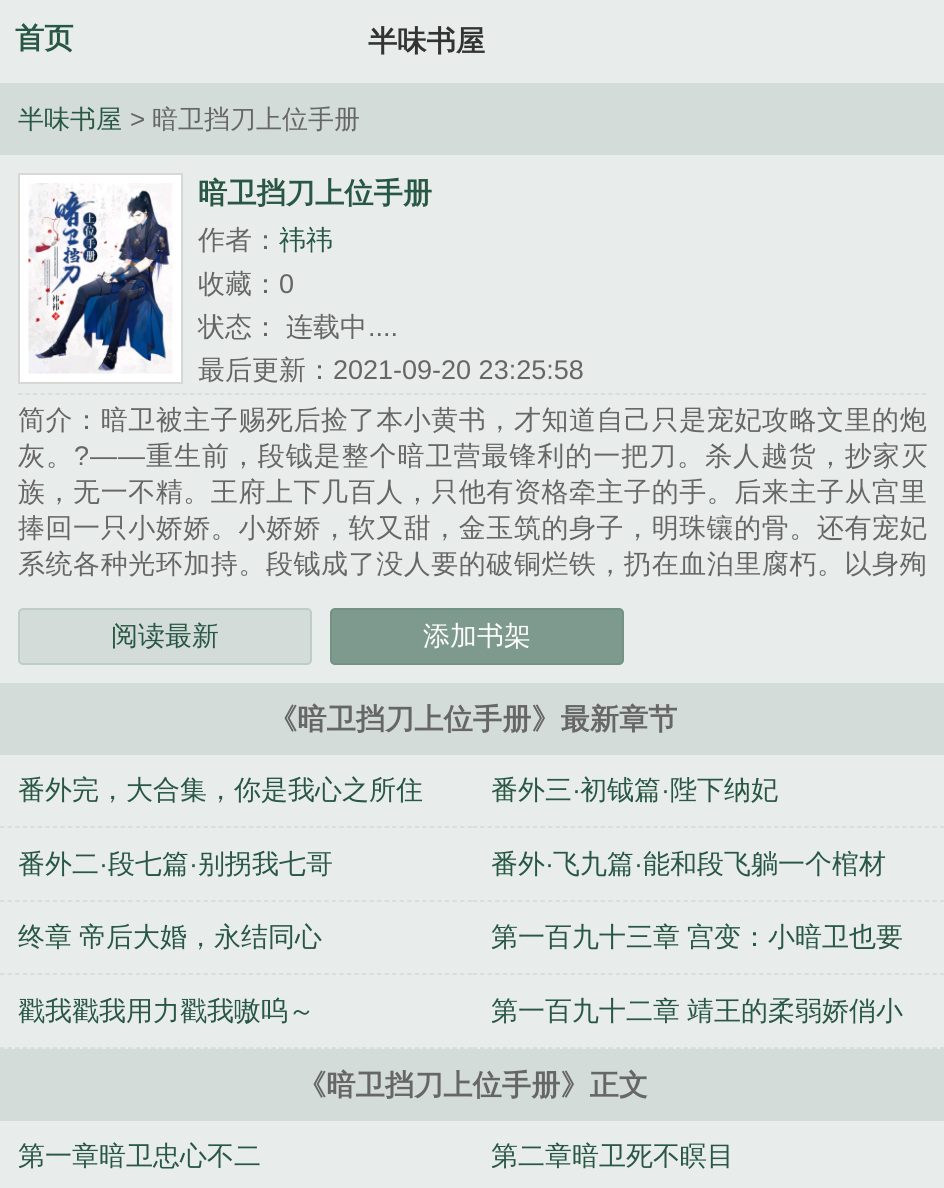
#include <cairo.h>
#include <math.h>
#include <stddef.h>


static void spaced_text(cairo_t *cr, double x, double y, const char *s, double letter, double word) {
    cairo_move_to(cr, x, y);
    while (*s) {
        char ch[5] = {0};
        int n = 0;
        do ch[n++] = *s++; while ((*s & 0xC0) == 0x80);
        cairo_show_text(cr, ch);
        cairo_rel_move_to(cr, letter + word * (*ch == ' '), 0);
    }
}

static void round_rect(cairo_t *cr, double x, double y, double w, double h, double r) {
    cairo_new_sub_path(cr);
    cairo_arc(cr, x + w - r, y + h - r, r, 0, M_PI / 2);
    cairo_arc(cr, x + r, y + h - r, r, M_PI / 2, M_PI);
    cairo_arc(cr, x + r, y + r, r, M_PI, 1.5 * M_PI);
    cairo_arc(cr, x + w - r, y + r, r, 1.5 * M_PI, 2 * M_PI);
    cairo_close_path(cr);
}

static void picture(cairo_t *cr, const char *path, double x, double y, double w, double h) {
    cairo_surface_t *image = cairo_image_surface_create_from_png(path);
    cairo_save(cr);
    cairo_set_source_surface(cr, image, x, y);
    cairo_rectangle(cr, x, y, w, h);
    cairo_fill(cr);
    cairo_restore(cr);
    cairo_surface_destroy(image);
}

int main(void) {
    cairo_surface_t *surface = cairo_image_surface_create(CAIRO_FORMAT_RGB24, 944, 1188);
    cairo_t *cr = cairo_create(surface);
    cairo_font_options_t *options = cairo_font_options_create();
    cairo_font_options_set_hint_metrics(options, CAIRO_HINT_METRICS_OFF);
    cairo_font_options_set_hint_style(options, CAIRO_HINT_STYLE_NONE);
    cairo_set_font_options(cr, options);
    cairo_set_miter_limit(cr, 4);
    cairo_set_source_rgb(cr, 0.91, 0.929, 0.922);
    cairo_paint(cr);
    cairo_select_font_face(cr, "WenQuanYi Zen Hei", CAIRO_FONT_SLANT_NORMAL, CAIRO_FONT_WEIGHT_BOLD);
    cairo_set_font_size(cr, 29.25);
    cairo_set_source_rgb(cr, 0.161, 0.341, 0.271);
    cairo_move_to(cr, 15, 48);
    cairo_show_text(cr, "首页");
    cairo_set_source_rgb(cr, 0.2, 0.2, 0.2);
    cairo_move_to(cr, 368, 51);
    cairo_show_text(cr, "半味书屋");
    cairo_set_source_rgb(cr, 0.827, 0.863, 0.851);
    cairo_rectangle(cr, 0, 83, 944, 72);
    cairo_fill(cr);
    cairo_select_font_face(cr, "WenQuanYi Zen Hei Medium", CAIRO_FONT_SLANT_NORMAL, CAIRO_FONT_WEIGHT_NORMAL);
    cairo_set_font_size(cr, 26);
    cairo_set_source_rgb(cr, 0.161, 0.341, 0.271);
    cairo_move_to(cr, 18, 128);
    cairo_show_text(cr, "半味书屋");
    cairo_select_font_face(cr, "Liberation Sans", CAIRO_FONT_SLANT_NORMAL, CAIRO_FONT_WEIGHT_NORMAL);
    cairo_set_source_rgb(cr, 0.4, 0.4, 0.4);
    cairo_move_to(cr, 130, 128);
    cairo_show_text(cr, ">");
    cairo_select_font_face(cr, "WenQuanYi Zen Hei Medium", CAIRO_FONT_SLANT_NORMAL, CAIRO_FONT_WEIGHT_NORMAL);
    cairo_move_to(cr, 152, 128);
    cairo_show_text(cr, "暗卫挡刀上位手册");
    cairo_set_source_rgb(cr, 1, 1, 1);
    cairo_rectangle(cr, 19, 174, 163, 209);
    cairo_fill_preserve(cr);
    cairo_set_source_rgb(cr, 0.843, 0.843, 0.843);
    cairo_stroke(cr);
    picture(cr, "img1.png", 28, 183, 145, 191);
    cairo_select_font_face(cr, "WenQuanYi Zen Hei", CAIRO_FONT_SLANT_NORMAL, CAIRO_FONT_WEIGHT_BOLD);
    cairo_set_font_size(cr, 29.25);
    cairo_set_source_rgb(cr, 0.161, 0.341, 0.271);
    cairo_move_to(cr, 198, 203);
    cairo_show_text(cr, "暗卫挡刀上位手册");
    cairo_select_font_face(cr, "WenQuanYi Zen Hei Medium", CAIRO_FONT_SLANT_NORMAL, CAIRO_FONT_WEIGHT_NORMAL);
    cairo_set_font_size(cr, 27);
    cairo_set_source_rgb(cr, 0.4, 0.4, 0.4);
    cairo_move_to(cr, 198, 249);
    cairo_show_text(cr, "作者：");
    cairo_set_source_rgb(cr, 0.161, 0.341, 0.271);
    cairo_move_to(cr, 279, 249);
    cairo_show_text(cr, "祎祎");
    cairo_set_source_rgb(cr, 0.4, 0.4, 0.4);
    cairo_move_to(cr, 198, 293);
    cairo_show_text(cr, "收藏：");
    cairo_select_font_face(cr, "Liberation Sans", CAIRO_FONT_SLANT_NORMAL, CAIRO_FONT_WEIGHT_NORMAL);
    cairo_move_to(cr, 279, 293);
    cairo_show_text(cr, "0");
    cairo_select_font_face(cr, "WenQuanYi Zen Hei Medium", CAIRO_FONT_SLANT_NORMAL, CAIRO_FONT_WEIGHT_NORMAL);
    spaced_text(cr, 198, 336, "状态： 连载中", 0, -1);
    cairo_select_font_face(cr, "Liberation Sans", CAIRO_FONT_SLANT_NORMAL, CAIRO_FONT_WEIGHT_NORMAL);
    cairo_move_to(cr, 368, 336);
    cairo_show_text(cr, "....");
    cairo_select_font_face(cr, "WenQuanYi Zen Hei Medium", CAIRO_FONT_SLANT_NORMAL, CAIRO_FONT_WEIGHT_NORMAL);
    cairo_move_to(cr, 198, 379);
    cairo_show_text(cr, "最后更新：");
    cairo_select_font_face(cr, "Liberation Sans", CAIRO_FONT_SLANT_NORMAL, CAIRO_FONT_WEIGHT_NORMAL);
    cairo_move_to(cr, 333, 379);
    cairo_show_text(cr, "2021-09-20 23:25:58");
    cairo_new_path(cr);
    cairo_move_to(cr, 18, 394);
    cairo_line_to(cr, 927, 394);
    cairo_set_source_rgb(cr, 0.843, 0.843, 0.843);
    cairo_set_line_width(cr, 1.5);
    cairo_set_dash(cr, (double[]){4.5, 2.97}, 2, 0);
    cairo_stroke(cr);
    cairo_select_font_face(cr, "WenQuanYi Zen Hei Medium", CAIRO_FONT_SLANT_NORMAL, CAIRO_FONT_WEIGHT_NORMAL);
    cairo_set_source_rgb(cr, 0.4, 0.4, 0.4);
    spaced_text(cr, 18, 429, "简介：暗卫被主子赐死后捡了本小黄书，才知道自己只是宠妃攻略文里的炮", 0.55, 0);
    spaced_text(cr, 18, 465, "灰。", 0.95, 0);
    cairo_select_font_face(cr, "Liberation Sans", CAIRO_FONT_SLANT_NORMAL, CAIRO_FONT_WEIGHT_NORMAL);
    spaced_text(cr, 74, 465, "?——", 0.95, 0);
    cairo_select_font_face(cr, "WenQuanYi Zen Hei Medium", CAIRO_FONT_SLANT_NORMAL, CAIRO_FONT_WEIGHT_NORMAL);
    spaced_text(cr, 146, 465, "重生前，段钺是整个暗卫营最锋利的一把刀。杀人越货，抄家灭", 0.95, 0);
    spaced_text(cr, 18, 501, "族，无一不精。王府上下几百人，只他有资格牵主子的手。后来主子从宫里", 0.55, 0);
    spaced_text(cr, 18, 537, "捧回一只小娇娇。小娇娇，软又甜，金玉筑的身子，明珠镶的骨。还有宠妃", 0.55, 0);
    spaced_text(cr, 18, 573, "系统各种光环加持。段钺成了没人要的破铜烂铁，扔在血泊里腐朽。以身殉", 0.55, 0);
    cairo_set_source_rgb(cr, 0.827, 0.863, 0.851);
    round_rect(cr, 18, 608, 294, 57, 5);
    cairo_fill(cr);
    round_rect(cr, 19, 609, 292, 55, 4);
    cairo_set_source_rgba(cr, 0.078, 0.275, 0.196, 0.1);
    cairo_set_line_width(cr, 2);
    cairo_set_dash(cr, NULL, 0, 0);
    cairo_stroke(cr);
    cairo_set_source_rgb(cr, 0.161, 0.341, 0.271);
    cairo_move_to(cr, 111, 645);
    cairo_show_text(cr, "阅读最新");
    cairo_set_source_rgb(cr, 0.494, 0.604, 0.561);
    round_rect(cr, 330, 608, 294, 57, 5);
    cairo_fill(cr);
    round_rect(cr, 331, 609, 292, 55, 4);
    cairo_set_source_rgba(cr, 0.078, 0.275, 0.196, 0.1);
    cairo_stroke(cr);
    cairo_set_source_rgb(cr, 1, 1, 1);
    cairo_move_to(cr, 423, 645);
    cairo_show_text(cr, "添加书架");
    cairo_set_source_rgb(cr, 0.827, 0.863, 0.851);
    cairo_rectangle(cr, 0, 683, 944, 72);
    cairo_fill(cr);
    cairo_select_font_face(cr, "WenQuanYi Zen Hei", CAIRO_FONT_SLANT_NORMAL, CAIRO_FONT_WEIGHT_BOLD);
    cairo_set_font_size(cr, 29.25);
    cairo_set_source_rgb(cr, 0.4, 0.4, 0.4);
    cairo_move_to(cr, 268, 729);
    cairo_show_text(cr, "《暗卫挡刀上位手册》最新章节");
    cairo_new_path(cr);
    cairo_move_to(cr, 0, 827);
    cairo_line_to(cr, 472.5, 827);
    cairo_set_source_rgb(cr, 0.843, 0.843, 0.843);
    cairo_set_line_width(cr, 1.5);
    cairo_set_dash(cr, (double[]){4.5, 3.04}, 2, 0);
    cairo_stroke(cr);
    cairo_select_font_face(cr, "WenQuanYi Zen Hei Medium", CAIRO_FONT_SLANT_NORMAL, CAIRO_FONT_WEIGHT_NORMAL);
    cairo_set_font_size(cr, 27);
    cairo_set_source_rgb(cr, 0.161, 0.341, 0.271);
    cairo_move_to(cr, 18, 799);
    cairo_show_text(cr, "番外完，大合集，你是我心之所住");
    cairo_new_path(cr);
    cairo_move_to(cr, 472.5, 827);
    cairo_line_to(cr, 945, 827);
    cairo_set_source_rgb(cr, 0.843, 0.843, 0.843);
    cairo_stroke(cr);
    cairo_set_source_rgb(cr, 0.161, 0.341, 0.271);
    cairo_move_to(cr, 491, 799);
    cairo_show_text(cr, "番外三");
    cairo_select_font_face(cr, "Liberation Sans", CAIRO_FONT_SLANT_NORMAL, CAIRO_FONT_WEIGHT_NORMAL);
    cairo_move_to(cr, 572, 799);
    cairo_show_text(cr, "·");
    cairo_select_font_face(cr, "WenQuanYi Zen Hei Medium", CAIRO_FONT_SLANT_NORMAL, CAIRO_FONT_WEIGHT_NORMAL);
    cairo_move_to(cr, 580, 799);
    cairo_show_text(cr, "初钺篇");
    cairo_select_font_face(cr, "Liberation Sans", CAIRO_FONT_SLANT_NORMAL, CAIRO_FONT_WEIGHT_NORMAL);
    cairo_move_to(cr, 661, 799);
    cairo_show_text(cr, "·");
    cairo_select_font_face(cr, "WenQuanYi Zen Hei Medium", CAIRO_FONT_SLANT_NORMAL, CAIRO_FONT_WEIGHT_NORMAL);
    cairo_move_to(cr, 670, 799);
    cairo_show_text(cr, "陛下纳妃");
    cairo_new_path(cr);
    cairo_move_to(cr, 0, 901);
    cairo_line_to(cr, 472.5, 901);
    cairo_set_source_rgb(cr, 0.843, 0.843, 0.843);
    cairo_stroke(cr);
    cairo_set_source_rgb(cr, 0.161, 0.341, 0.271);
    cairo_move_to(cr, 18, 873);
    cairo_show_text(cr, "番外二");
    cairo_select_font_face(cr, "Liberation Sans", CAIRO_FONT_SLANT_NORMAL, CAIRO_FONT_WEIGHT_NORMAL);
    cairo_move_to(cr, 99, 873);
    cairo_show_text(cr, "·");
    cairo_select_font_face(cr, "WenQuanYi Zen Hei Medium", CAIRO_FONT_SLANT_NORMAL, CAIRO_FONT_WEIGHT_NORMAL);
    cairo_move_to(cr, 108, 873);
    cairo_show_text(cr, "段七篇");
    cairo_select_font_face(cr, "Liberation Sans", CAIRO_FONT_SLANT_NORMAL, CAIRO_FONT_WEIGHT_NORMAL);
    cairo_move_to(cr, 189, 873);
    cairo_show_text(cr, "·");
    cairo_select_font_face(cr, "WenQuanYi Zen Hei Medium", CAIRO_FONT_SLANT_NORMAL, CAIRO_FONT_WEIGHT_NORMAL);
    cairo_move_to(cr, 198, 873);
    cairo_show_text(cr, "别拐我七哥");
    cairo_new_path(cr);
    cairo_move_to(cr, 472.5, 901);
    cairo_line_to(cr, 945, 901);
    cairo_set_source_rgb(cr, 0.843, 0.843, 0.843);
    cairo_stroke(cr);
    cairo_set_source_rgb(cr, 0.161, 0.341, 0.271);
    cairo_move_to(cr, 491, 873);
    cairo_show_text(cr, "番外");
    cairo_select_font_face(cr, "Liberation Sans", CAIRO_FONT_SLANT_NORMAL, CAIRO_FONT_WEIGHT_NORMAL);
    cairo_move_to(cr, 545, 873);
    cairo_show_text(cr, "·");
    cairo_select_font_face(cr, "WenQuanYi Zen Hei Medium", CAIRO_FONT_SLANT_NORMAL, CAIRO_FONT_WEIGHT_NORMAL);
    cairo_move_to(cr, 553, 873);
    cairo_show_text(cr, "飞九篇");
    cairo_select_font_face(cr, "Liberation Sans", CAIRO_FONT_SLANT_NORMAL, CAIRO_FONT_WEIGHT_NORMAL);
    cairo_move_to(cr, 634, 873);
    cairo_show_text(cr, "·");
    cairo_select_font_face(cr, "WenQuanYi Zen Hei Medium", CAIRO_FONT_SLANT_NORMAL, CAIRO_FONT_WEIGHT_NORMAL);
    cairo_move_to(cr, 643, 873);
    cairo_show_text(cr, "能和段飞躺一个棺材");
    cairo_new_path(cr);
    cairo_move_to(cr, 0, 974);
    cairo_line_to(cr, 472.5, 974);
    cairo_set_source_rgb(cr, 0.843, 0.843, 0.843);
    cairo_stroke(cr);
    cairo_set_source_rgb(cr, 0.161, 0.341, 0.271);
    spaced_text(cr, 18, 946, "终章 帝后大婚，永结同心", 0, -1);
    cairo_new_path(cr);
    cairo_move_to(cr, 472.5, 974);
    cairo_line_to(cr, 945, 974);
    cairo_set_source_rgb(cr, 0.843, 0.843, 0.843);
    cairo_stroke(cr);
    cairo_set_source_rgb(cr, 0.161, 0.341, 0.271);
    spaced_text(cr, 491, 946, "第一百九十三章 宫变：小暗卫也要", 0, -1);
    cairo_new_path(cr);
    cairo_move_to(cr, 0, 1048);
    cairo_line_to(cr, 472.5, 1048);
    cairo_set_source_rgb(cr, 0.843, 0.843, 0.843);
    cairo_stroke(cr);
    cairo_set_source_rgb(cr, 0.161, 0.341, 0.271);
    cairo_move_to(cr, 18, 1020);
    cairo_show_text(cr, "戳我戳我用力戳我嗷呜～");
    cairo_new_path(cr);
    cairo_move_to(cr, 472.5, 1048);
    cairo_line_to(cr, 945, 1048);
    cairo_set_source_rgb(cr, 0.843, 0.843, 0.843);
    cairo_stroke(cr);
    cairo_set_source_rgb(cr, 0.161, 0.341, 0.271);
    spaced_text(cr, 491, 1020, "第一百九十二章 靖王的柔弱娇俏小", 0, -1);
    cairo_set_source_rgb(cr, 0.827, 0.863, 0.851);
    cairo_rectangle(cr, 0, 1049, 944, 72);
    cairo_fill(cr);
    cairo_select_font_face(cr, "WenQuanYi Zen Hei", CAIRO_FONT_SLANT_NORMAL, CAIRO_FONT_WEIGHT_BOLD);
    cairo_set_font_size(cr, 29.25);
    cairo_set_source_rgb(cr, 0.4, 0.4, 0.4);
    cairo_move_to(cr, 297, 1095);
    cairo_show_text(cr, "《暗卫挡刀上位手册》正文");
    cairo_select_font_face(cr, "WenQuanYi Zen Hei Medium", CAIRO_FONT_SLANT_NORMAL, CAIRO_FONT_WEIGHT_NORMAL);
    cairo_set_font_size(cr, 27);
    cairo_set_source_rgb(cr, 0.161, 0.341, 0.271);
    cairo_move_to(cr, 18, 1165);
    cairo_show_text(cr, "第一章暗卫忠心不二");
    cairo_move_to(cr, 491, 1165);
    cairo_show_text(cr, "第二章暗卫死不瞑目");
    cairo_surface_write_to_png(surface, "page.png");
    cairo_font_options_destroy(options);
    cairo_destroy(cr);
    cairo_surface_destroy(surface);
    return 0;
}
